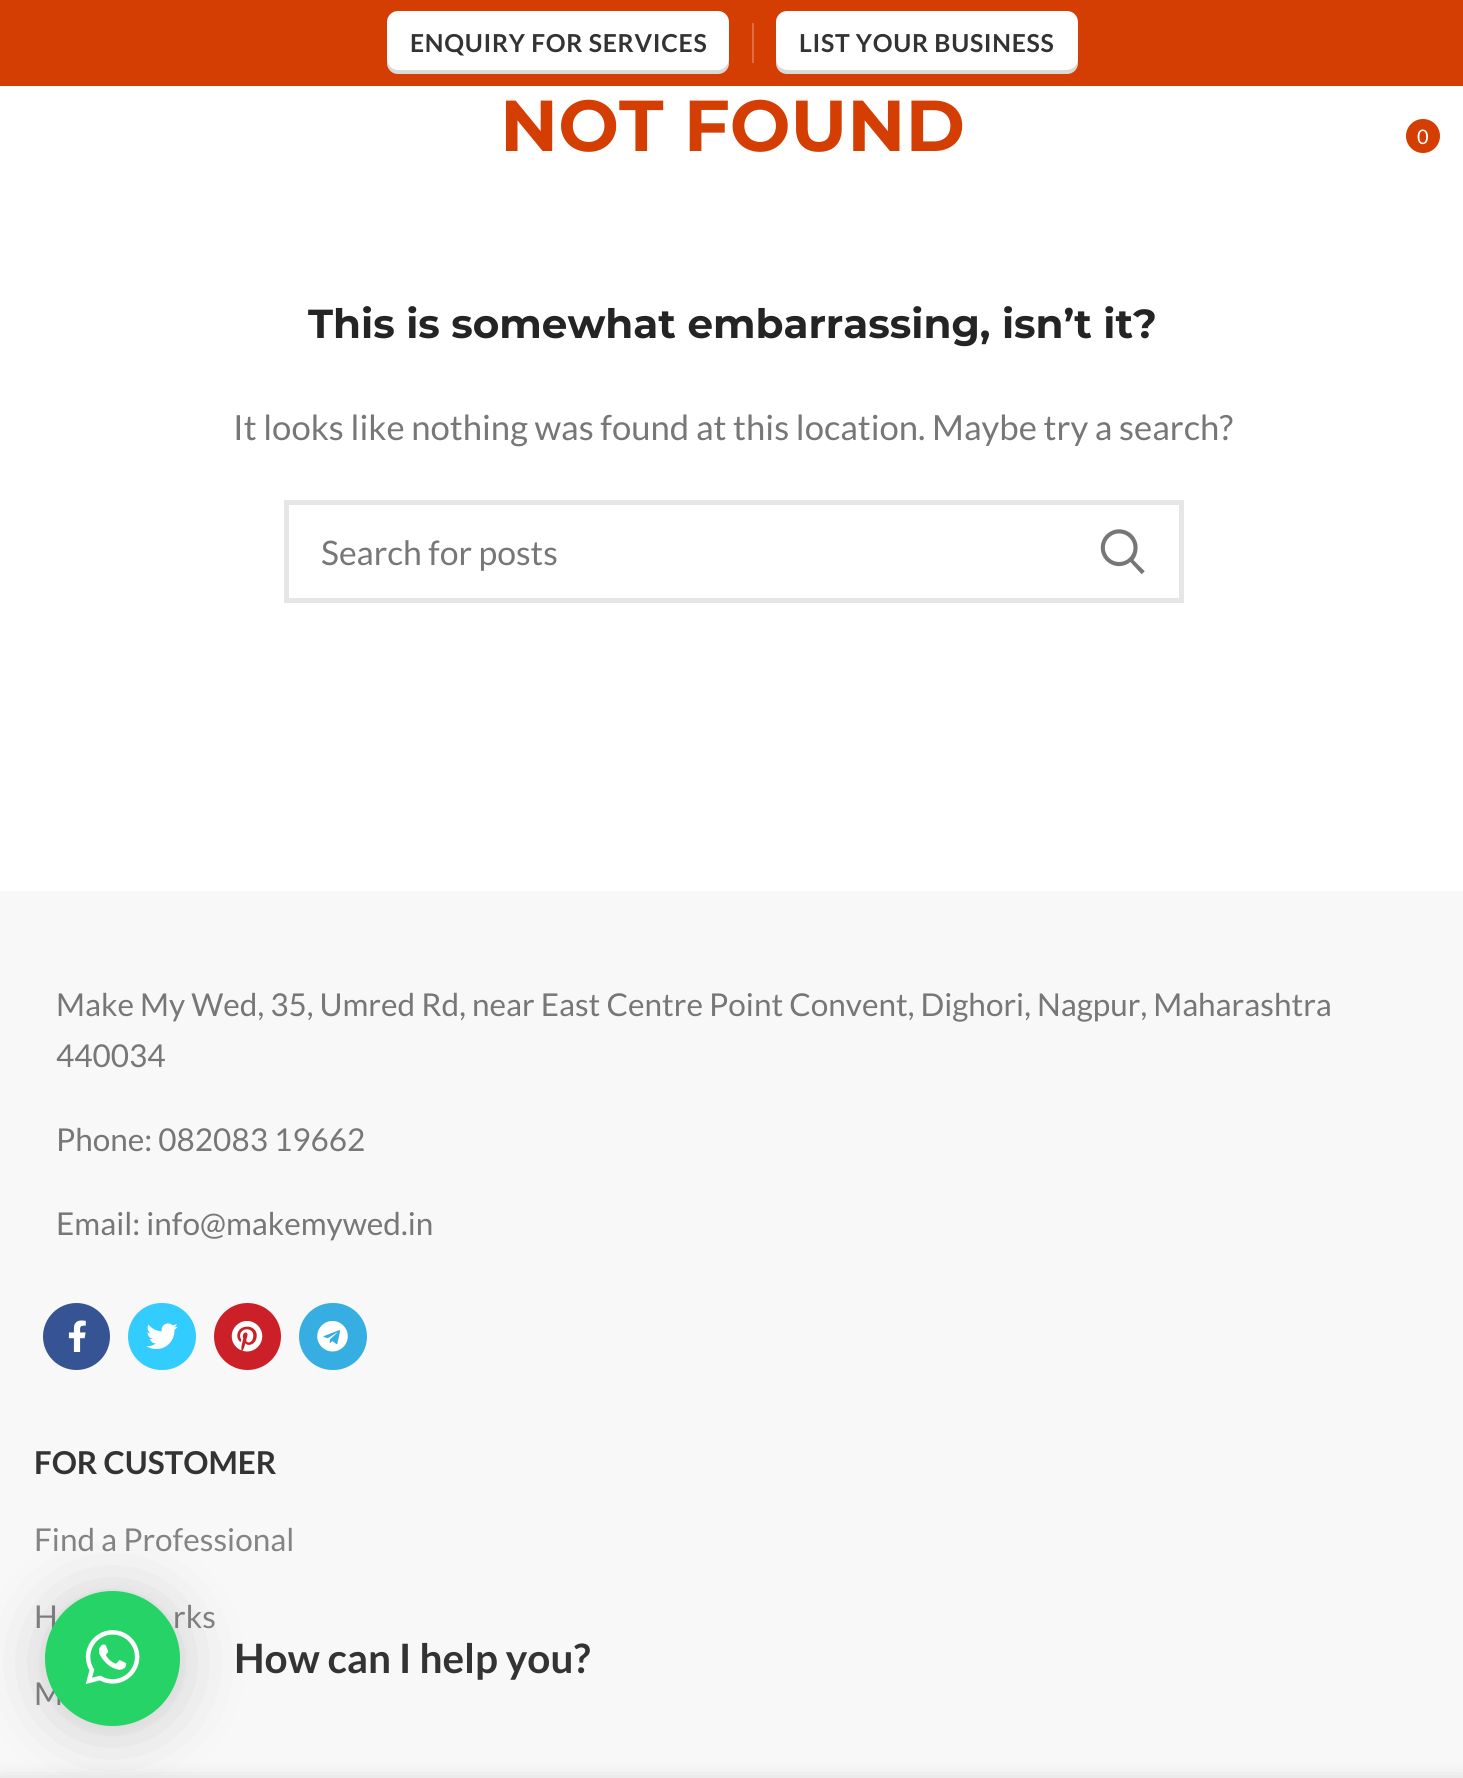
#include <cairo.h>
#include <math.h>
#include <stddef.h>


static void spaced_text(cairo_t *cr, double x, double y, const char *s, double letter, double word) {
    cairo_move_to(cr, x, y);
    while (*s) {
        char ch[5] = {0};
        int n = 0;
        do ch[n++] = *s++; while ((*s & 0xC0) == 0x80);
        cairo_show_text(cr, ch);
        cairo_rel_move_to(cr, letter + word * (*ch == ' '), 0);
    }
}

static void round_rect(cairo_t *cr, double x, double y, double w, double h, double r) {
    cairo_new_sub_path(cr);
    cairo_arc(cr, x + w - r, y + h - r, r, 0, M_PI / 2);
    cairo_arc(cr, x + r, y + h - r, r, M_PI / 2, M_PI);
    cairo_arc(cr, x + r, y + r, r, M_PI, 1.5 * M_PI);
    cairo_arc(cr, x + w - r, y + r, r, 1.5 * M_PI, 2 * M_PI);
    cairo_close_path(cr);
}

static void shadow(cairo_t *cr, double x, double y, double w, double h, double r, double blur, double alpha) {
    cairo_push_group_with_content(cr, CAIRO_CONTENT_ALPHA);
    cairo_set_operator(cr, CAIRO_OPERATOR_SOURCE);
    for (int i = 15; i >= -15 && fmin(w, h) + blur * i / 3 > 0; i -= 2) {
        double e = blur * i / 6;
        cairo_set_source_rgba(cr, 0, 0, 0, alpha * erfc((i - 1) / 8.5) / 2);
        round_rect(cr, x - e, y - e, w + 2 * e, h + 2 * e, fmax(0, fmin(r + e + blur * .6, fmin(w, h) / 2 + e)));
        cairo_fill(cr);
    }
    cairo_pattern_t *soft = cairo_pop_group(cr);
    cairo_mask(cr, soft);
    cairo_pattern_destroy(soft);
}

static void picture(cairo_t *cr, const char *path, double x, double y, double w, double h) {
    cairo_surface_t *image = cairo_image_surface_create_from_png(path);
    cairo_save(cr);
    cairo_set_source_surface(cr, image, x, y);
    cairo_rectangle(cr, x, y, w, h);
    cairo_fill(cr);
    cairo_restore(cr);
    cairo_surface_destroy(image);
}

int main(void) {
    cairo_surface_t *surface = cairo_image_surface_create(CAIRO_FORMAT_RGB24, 1463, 1778);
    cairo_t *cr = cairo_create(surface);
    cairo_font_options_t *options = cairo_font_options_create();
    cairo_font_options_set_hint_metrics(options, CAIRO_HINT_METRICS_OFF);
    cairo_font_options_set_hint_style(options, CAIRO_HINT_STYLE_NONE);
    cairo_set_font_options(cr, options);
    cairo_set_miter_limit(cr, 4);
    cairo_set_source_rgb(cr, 1, 1, 1);
    cairo_paint(cr);
    cairo_set_source_rgb(cr, 0.831, 0.243, 0.012);
    cairo_rectangle(cr, 0, 0, 1463, 86);
    cairo_fill(cr);
    cairo_set_source_rgb(cr, 1, 1, 1);
    round_rect(cr, 387, 11, 342, 63, 11);
    cairo_fill(cr);
    cairo_set_source_rgba(cr, 0, 0, 0, 0.15);
    cairo_new_path(cr);
    cairo_move_to(cr, 387, 58);
    cairo_line_to(cr, 387, 63);
    cairo_curve_to(cr, 387, 69, 392, 74, 398, 74);
    cairo_line_to(cr, 718, 74);
    cairo_curve_to(cr, 724, 74, 729, 69, 729, 63);
    cairo_line_to(cr, 729, 58);
    cairo_curve_to(cr, 729, 65, 724, 70, 718, 70);
    cairo_line_to(cr, 398, 70);
    cairo_curve_to(cr, 392, 70, 387, 65, 387, 58);
    cairo_close_path(cr);
    cairo_fill(cr);
    cairo_select_font_face(cr, "Lato", CAIRO_FONT_SLANT_NORMAL, CAIRO_FONT_WEIGHT_BOLD);
    cairo_set_font_size(cr, 24.75);
    cairo_set_source_rgb(cr, 0.2, 0.2, 0.2);
    spaced_text(cr, 410, 52, "ENQUIRY FOR SERVICES", 0.7, 0);
    cairo_set_source_rgb(cr, 0.875, 0.431, 0.259);
    cairo_rectangle(cr, 752, 23, 2, 40);
    cairo_fill(cr);
    cairo_set_source_rgb(cr, 1, 1, 1);
    round_rect(cr, 776, 11, 302, 63, 11);
    cairo_fill(cr);
    cairo_set_source_rgba(cr, 0, 0, 0, 0.15);
    cairo_new_path(cr);
    cairo_move_to(cr, 776, 58);
    cairo_line_to(cr, 776, 63);
    cairo_curve_to(cr, 776, 69, 781, 74, 787, 74);
    cairo_line_to(cr, 1067, 74);
    cairo_curve_to(cr, 1073, 74, 1078, 69, 1078, 63);
    cairo_line_to(cr, 1078, 58);
    cairo_curve_to(cr, 1078, 65, 1073, 70, 1066, 70);
    cairo_line_to(cr, 788, 70);
    cairo_curve_to(cr, 781, 70, 776, 65, 776, 58);
    cairo_close_path(cr);
    cairo_fill(cr);
    cairo_set_source_rgb(cr, 0.2, 0.2, 0.2);
    spaced_text(cr, 799, 52, "LIST YOUR BUSINESS", 0.7, 0);
    cairo_set_source_rgb(cr, 0.831, 0.243, 0.012);
    cairo_new_path(cr);
    cairo_arc(cr, 1423, 136, 17, 0, 2 * M_PI);
    cairo_fill(cr);
    cairo_select_font_face(cr, "Lato", CAIRO_FONT_SLANT_NORMAL, CAIRO_FONT_WEIGHT_NORMAL);
    cairo_set_font_size(cr, 20);
    cairo_set_source_rgb(cr, 1, 1, 1);
    cairo_move_to(cr, 1417, 144);
    cairo_show_text(cr, "0");
    cairo_select_font_face(cr, "Montserrat", CAIRO_FONT_SLANT_NORMAL, CAIRO_FONT_WEIGHT_BOLD);
    cairo_set_font_size(cr, 72);
    cairo_set_source_rgb(cr, 0.831, 0.243, 0.012);
    cairo_move_to(cr, 500, 151);
    cairo_show_text(cr, "NOT FOUND");
    cairo_set_font_size(cr, 40.5);
    cairo_set_source_rgb(cr, 0.141, 0.141, 0.141);
    cairo_move_to(cr, 308, 338);
    cairo_show_text(cr, "This is somewhat embarrassing, isn’t it?");
    cairo_select_font_face(cr, "Lato", CAIRO_FONT_SLANT_NORMAL, CAIRO_FONT_WEIGHT_NORMAL);
    cairo_set_font_size(cr, 34.65);
    cairo_set_source_rgb(cr, 0.467, 0.467, 0.467);
    cairo_move_to(cr, 233, 440);
    cairo_show_text(cr, "It looks like nothing was found at this location. Maybe try a search?");
    cairo_rectangle(cr, 286.5, 502.5, 895, 98);
    cairo_set_source_rgb(cr, 0.902, 0.902, 0.902);
    cairo_set_line_width(cr, 5);
    cairo_stroke(cr);
    cairo_set_font_size(cr, 33.75);
    cairo_set_source_rgb(cr, 0.467, 0.467, 0.467);
    cairo_move_to(cr, 321, 565);
    cairo_show_text(cr, "Search for posts");
    picture(cr, "img1.png", 1100, 529, 45, 46);
    cairo_set_source_rgb(cr, 0.969, 0.969, 0.969);
    cairo_rectangle(cr, 0, 891, 1463, 887);
    cairo_fill(cr);
    cairo_set_font_size(cr, 31.5);
    cairo_set_source_rgb(cr, 0.467, 0.467, 0.467);
    cairo_move_to(cr, 56, 1016);
    cairo_show_text(cr, "Make My Wed, 35, Umred Rd, near East Centre Point Convent, Dighori, Nagpur, Maharashtra");
    cairo_move_to(cr, 56, 1067);
    cairo_show_text(cr, "440034");
    cairo_move_to(cr, 56, 1151);
    cairo_show_text(cr, "Phone: 082083 19662");
    cairo_move_to(cr, 56, 1235);
    cairo_show_text(cr, "Email: info@makemywed.in");
    cairo_set_source_rgb(cr, 0.212, 0.329, 0.576);
    cairo_new_path(cr);
    cairo_arc(cr, 76.5, 1336.5, 33.5, 0, 2 * M_PI);
    cairo_fill(cr);
    picture(cr, "img2.png", 68, 1320, 18, 32);
    cairo_set_source_rgb(cr, 0.2, 0.8, 1);
    round_rect(cr, 128, 1303, 68, 67, 33.5);
    cairo_fill(cr);
    picture(cr, "img3.png", 146, 1323, 32, 26);
    cairo_set_source_rgb(cr, 0.796, 0.125, 0.153);
    cairo_arc(cr, 247.5, 1336.5, 33.5, 0, 2 * M_PI);
    cairo_fill(cr);
    picture(cr, "img4.png", 231, 1321, 32, 31);
    cairo_set_source_rgb(cr, 0.216, 0.682, 0.886);
    round_rect(cr, 299, 1303, 68, 67, 33.5);
    cairo_fill(cr);
    picture(cr, "img5.png", 317, 1321, 31, 31);
    cairo_select_font_face(cr, "Lato", CAIRO_FONT_SLANT_NORMAL, CAIRO_FONT_WEIGHT_BOLD);
    cairo_set_source_rgb(cr, 0.2, 0.2, 0.2);
    cairo_move_to(cr, 34, 1474);
    cairo_show_text(cr, "FOR CUSTOMER");
    cairo_select_font_face(cr, "Lato", CAIRO_FONT_SLANT_NORMAL, CAIRO_FONT_WEIGHT_NORMAL);
    cairo_set_source_rgb(cr, 0.518, 0.518, 0.518);
    cairo_move_to(cr, 34, 1551);
    cairo_show_text(cr, "Find a Professional");
    cairo_move_to(cr, 34, 1628);
    cairo_show_text(cr, "H");
    cairo_move_to(cr, 173, 1628);
    cairo_show_text(cr, "rks");
    cairo_move_to(cr, 34, 1705);
    cairo_show_text(cr, "M");
    cairo_set_source_rgb(cr, 0, 0, 0);
    shadow(cr, 45, 1595, 135, 135, 67.5, 36, 0.16);
    shadow(cr, 45, 1593, 135, 135, 67.5, 7, 0.06);
    cairo_set_source_rgb(cr, 0.145, 0.827, 0.4);
    cairo_arc(cr, 112.5, 1658.5, 67.5, 0, 2 * M_PI);
    cairo_fill(cr);
    picture(cr, "img6.png", 85, 1630, 55, 55);
    cairo_select_font_face(cr, "Lato", CAIRO_FONT_SLANT_NORMAL, CAIRO_FONT_WEIGHT_BOLD);
    cairo_set_font_size(cr, 40.5);
    cairo_set_source_rgb(cr, 0.2, 0.2, 0.2);
    cairo_move_to(cr, 234, 1673);
    cairo_show_text(cr, "How can I help you?");
    cairo_set_source_rgb(cr, 0, 0, 0);
    shadow(cr, 0, 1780, 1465, 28, 0, 10, 0.14);
    cairo_surface_write_to_png(surface, "page.png");
    cairo_font_options_destroy(options);
    cairo_destroy(cr);
    cairo_surface_destroy(surface);
    return 0;
}
